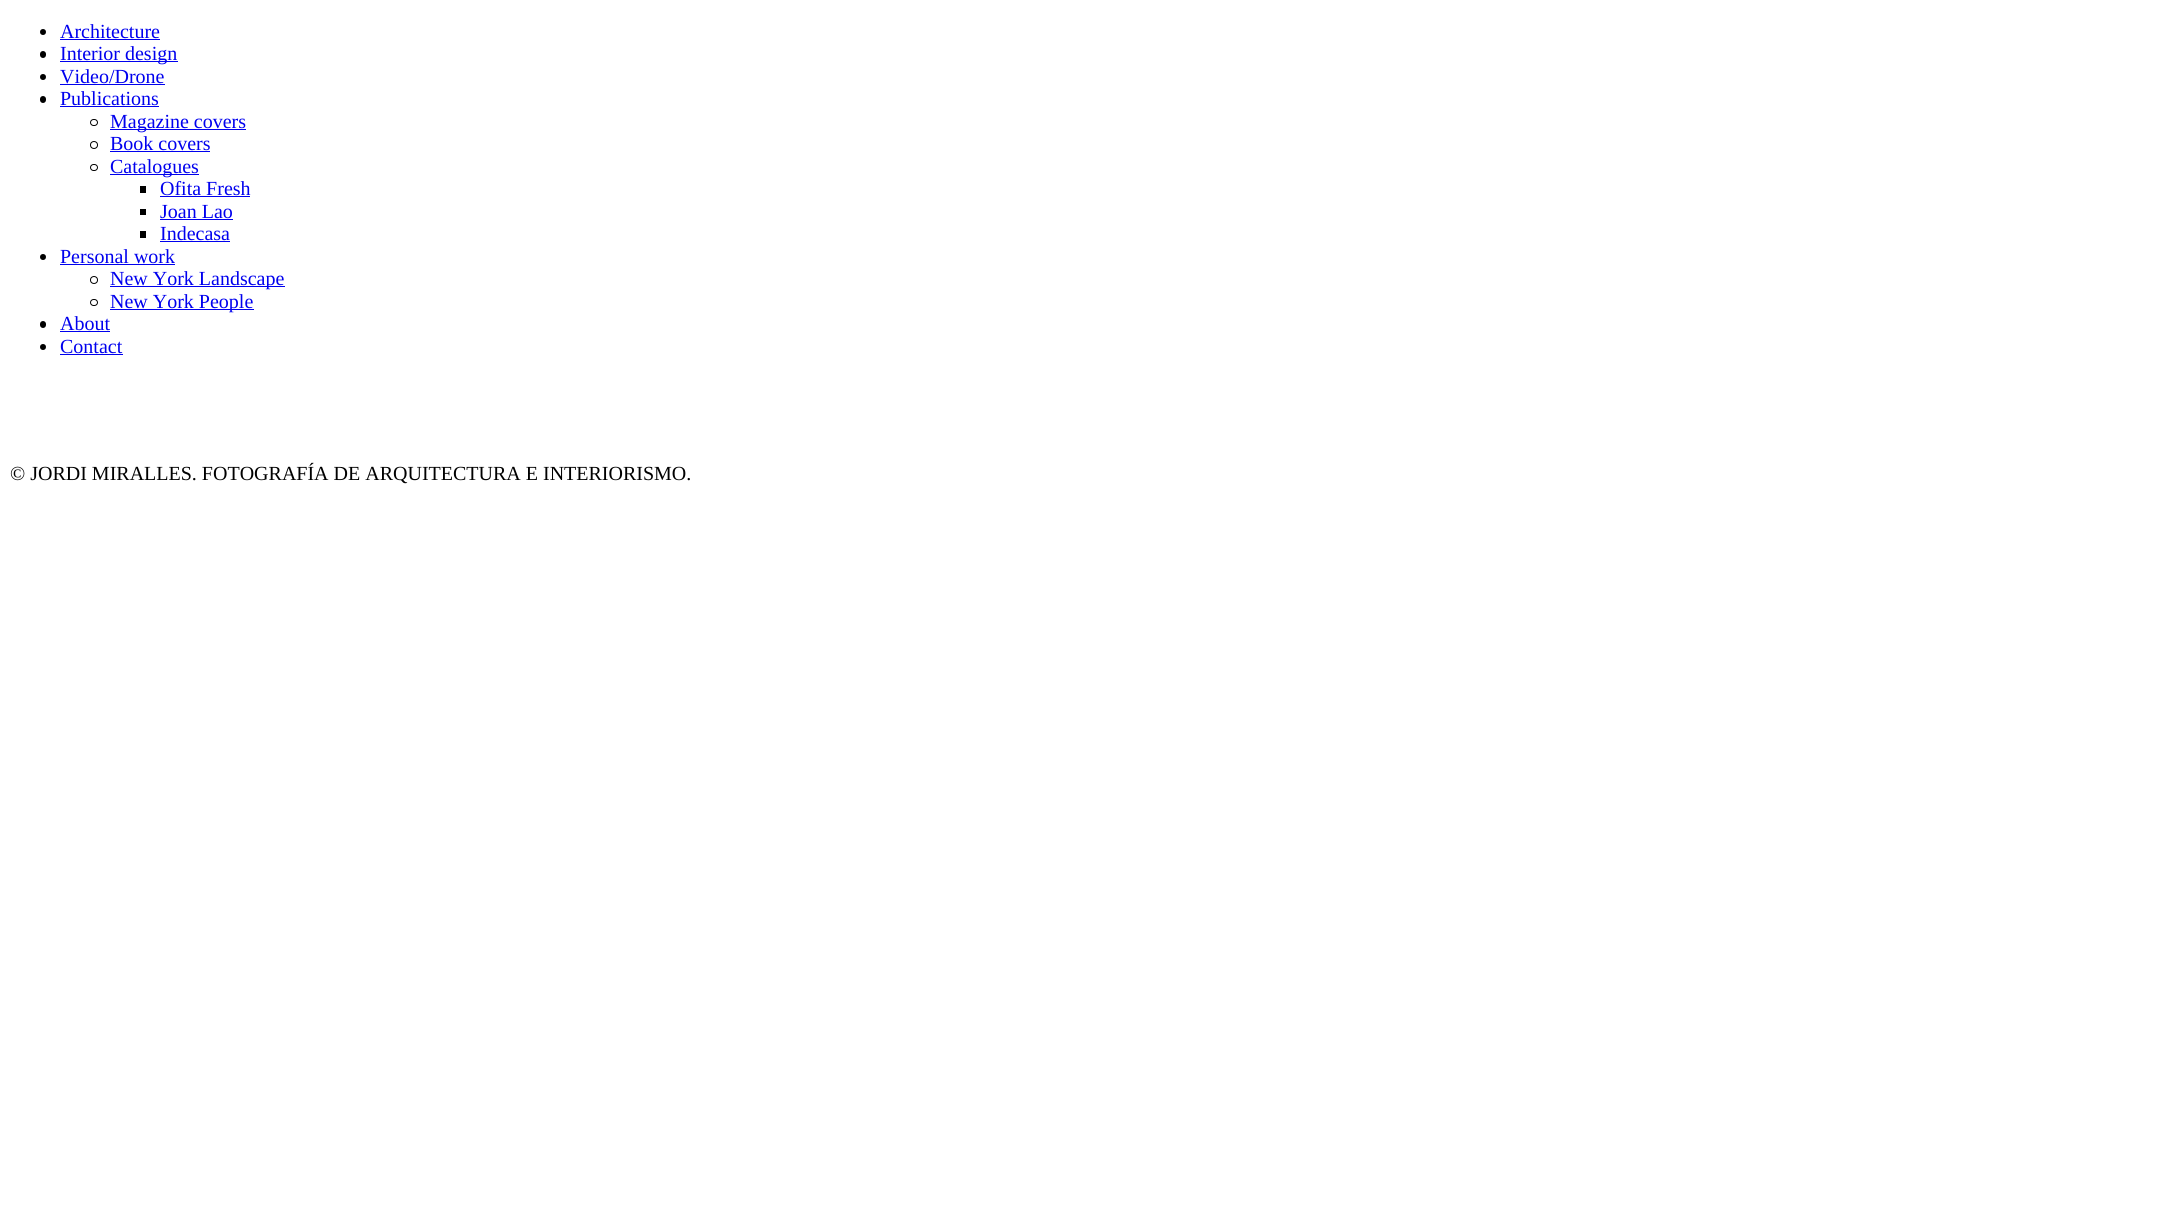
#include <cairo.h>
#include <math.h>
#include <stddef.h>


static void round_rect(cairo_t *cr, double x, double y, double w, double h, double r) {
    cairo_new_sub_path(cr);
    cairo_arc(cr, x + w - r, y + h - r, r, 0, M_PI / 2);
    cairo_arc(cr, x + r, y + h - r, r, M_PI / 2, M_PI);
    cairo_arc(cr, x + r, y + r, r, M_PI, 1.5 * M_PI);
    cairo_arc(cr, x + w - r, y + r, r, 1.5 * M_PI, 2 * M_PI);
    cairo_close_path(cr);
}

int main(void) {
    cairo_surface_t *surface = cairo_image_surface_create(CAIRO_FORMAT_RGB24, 2182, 1206);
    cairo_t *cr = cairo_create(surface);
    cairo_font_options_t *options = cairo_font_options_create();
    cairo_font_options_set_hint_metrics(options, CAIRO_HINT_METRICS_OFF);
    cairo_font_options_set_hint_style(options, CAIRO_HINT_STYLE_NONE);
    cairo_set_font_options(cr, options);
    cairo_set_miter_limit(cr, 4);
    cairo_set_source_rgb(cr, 1, 1, 1);
    cairo_paint(cr);
    cairo_set_source_rgb(cr, 0, 0, 0);
    cairo_arc(cr, 43, 32, 3, 0, 2 * M_PI);
    cairo_fill(cr);
    cairo_select_font_face(cr, "Liberation Serif", CAIRO_FONT_SLANT_NORMAL, CAIRO_FONT_WEIGHT_NORMAL);
    cairo_set_font_size(cr, 20);
    cairo_set_source_rgb(cr, 0, 0, 0.933);
    cairo_move_to(cr, 60, 38);
    cairo_show_text(cr, "Architecture");
    cairo_rectangle(cr, 60, 39, 100, 1);
    cairo_fill(cr);
    cairo_set_source_rgb(cr, 0, 0, 0);
    round_rect(cr, 40, 51, 6, 7, 3);
    cairo_fill(cr);
    cairo_set_source_rgb(cr, 0, 0, 0.933);
    cairo_rectangle(cr, 60, 61, 118, 1);
    cairo_fill(cr);
    cairo_move_to(cr, 60, 60);
    cairo_show_text(cr, "Interior design");
    cairo_set_source_rgb(cr, 0, 0, 0);
    cairo_new_path(cr);
    cairo_arc(cr, 43, 77, 3, 0, 2 * M_PI);
    cairo_fill(cr);
    cairo_set_source_rgb(cr, 0, 0, 0.933);
    cairo_move_to(cr, 60, 83);
    cairo_show_text(cr, "Video/Drone");
    cairo_rectangle(cr, 60, 84, 105, 1);
    cairo_fill(cr);
    cairo_set_source_rgb(cr, 0, 0, 0);
    round_rect(cr, 40, 96, 6, 7, 3);
    cairo_fill(cr);
    cairo_set_source_rgb(cr, 0, 0, 0.933);
    cairo_move_to(cr, 60, 105);
    cairo_show_text(cr, "Publications");
    cairo_rectangle(cr, 60, 106, 99, 1);
    cairo_fill(cr);
    round_rect(cr, 90.5, 119.5, 7, 6, 3);
    cairo_set_source_rgb(cr, 0, 0, 0);
    cairo_set_line_width(cr, 1);
    cairo_stroke(cr);
    cairo_set_source_rgb(cr, 0, 0, 0.933);
    cairo_rectangle(cr, 110, 129, 136, 1);
    cairo_fill(cr);
    cairo_move_to(cr, 110, 128);
    cairo_show_text(cr, "Magazine covers");
    cairo_new_path(cr);
    cairo_arc(cr, 94, 145, 3.5, 0, 2 * M_PI);
    cairo_set_source_rgb(cr, 0, 0, 0);
    cairo_stroke(cr);
    cairo_set_source_rgb(cr, 0, 0, 0.933);
    cairo_move_to(cr, 110, 150);
    cairo_show_text(cr, "Book covers");
    cairo_rectangle(cr, 110, 151, 100, 1);
    cairo_fill(cr);
    round_rect(cr, 90.5, 164.5, 7, 6, 3);
    cairo_set_source_rgb(cr, 0, 0, 0);
    cairo_stroke(cr);
    cairo_set_source_rgb(cr, 0, 0, 0.933);
    cairo_rectangle(cr, 110, 174, 89, 1);
    cairo_fill(cr);
    cairo_move_to(cr, 110, 173);
    cairo_show_text(cr, "Catalogues");
    cairo_set_source_rgb(cr, 0, 0, 0);
    cairo_rectangle(cr, 140, 186, 6, 7);
    cairo_fill(cr);
    cairo_set_source_rgb(cr, 0, 0, 0.933);
    cairo_move_to(cr, 160, 195);
    cairo_show_text(cr, "Ofita Fresh");
    cairo_rectangle(cr, 160, 196, 90, 1);
    cairo_fill(cr);
    cairo_set_source_rgb(cr, 0, 0, 0);
    cairo_rectangle(cr, 140, 209, 6, 6);
    cairo_fill(cr);
    cairo_set_source_rgb(cr, 0, 0, 0.933);
    cairo_move_to(cr, 160, 218);
    cairo_show_text(cr, "Joan Lao");
    cairo_rectangle(cr, 160, 219, 73, 1);
    cairo_fill(cr);
    cairo_set_source_rgb(cr, 0, 0, 0);
    cairo_rectangle(cr, 140, 231, 6, 7);
    cairo_fill(cr);
    cairo_set_source_rgb(cr, 0, 0, 0.933);
    cairo_move_to(cr, 160, 240);
    cairo_show_text(cr, "Indecasa");
    cairo_rectangle(cr, 160, 241, 70, 1);
    cairo_fill(cr);
    cairo_set_source_rgb(cr, 0, 0, 0);
    cairo_arc(cr, 43, 257, 3, 0, 2 * M_PI);
    cairo_fill(cr);
    cairo_set_source_rgb(cr, 0, 0, 0.933);
    cairo_move_to(cr, 60, 263);
    cairo_show_text(cr, "Personal work");
    cairo_rectangle(cr, 60, 264, 115, 1);
    cairo_fill(cr);
    cairo_arc(cr, 94, 280, 3.5, 0, 2 * M_PI);
    cairo_set_source_rgb(cr, 0, 0, 0);
    cairo_stroke(cr);
    cairo_set_source_rgb(cr, 0, 0, 0.933);
    cairo_rectangle(cr, 110, 286, 175, 1);
    cairo_fill(cr);
    cairo_move_to(cr, 110, 285);
    cairo_show_text(cr, "New York Landscape");
    round_rect(cr, 90.5, 299.5, 7, 6, 3);
    cairo_set_source_rgb(cr, 0, 0, 0);
    cairo_stroke(cr);
    cairo_set_source_rgb(cr, 0, 0, 0.933);
    cairo_rectangle(cr, 110, 309, 144, 1);
    cairo_fill(cr);
    cairo_move_to(cr, 110, 308);
    cairo_show_text(cr, "New York People");
    cairo_set_source_rgb(cr, 0, 0, 0);
    round_rect(cr, 40, 321, 6, 7, 3);
    cairo_fill(cr);
    cairo_set_source_rgb(cr, 0, 0, 0.933);
    cairo_move_to(cr, 60, 330);
    cairo_show_text(cr, "About");
    cairo_rectangle(cr, 60, 331, 50, 1);
    cairo_fill(cr);
    cairo_set_source_rgb(cr, 0, 0, 0);
    cairo_arc(cr, 43, 347, 3, 0, 2 * M_PI);
    cairo_fill(cr);
    cairo_set_source_rgb(cr, 0, 0, 0.933);
    cairo_move_to(cr, 60, 353);
    cairo_show_text(cr, "Contact");
    cairo_rectangle(cr, 60, 354, 63, 1);
    cairo_fill(cr);
    cairo_set_source_rgb(cr, 0, 0, 0);
    cairo_move_to(cr, 10, 480);
    cairo_show_text(cr, "© JORDI MIRALLES. FOTOGRAFÍA DE ARQUITECTURA E INTERIORISMO.");
    cairo_surface_write_to_png(surface, "page.png");
    cairo_font_options_destroy(options);
    cairo_destroy(cr);
    cairo_surface_destroy(surface);
    return 0;
}
